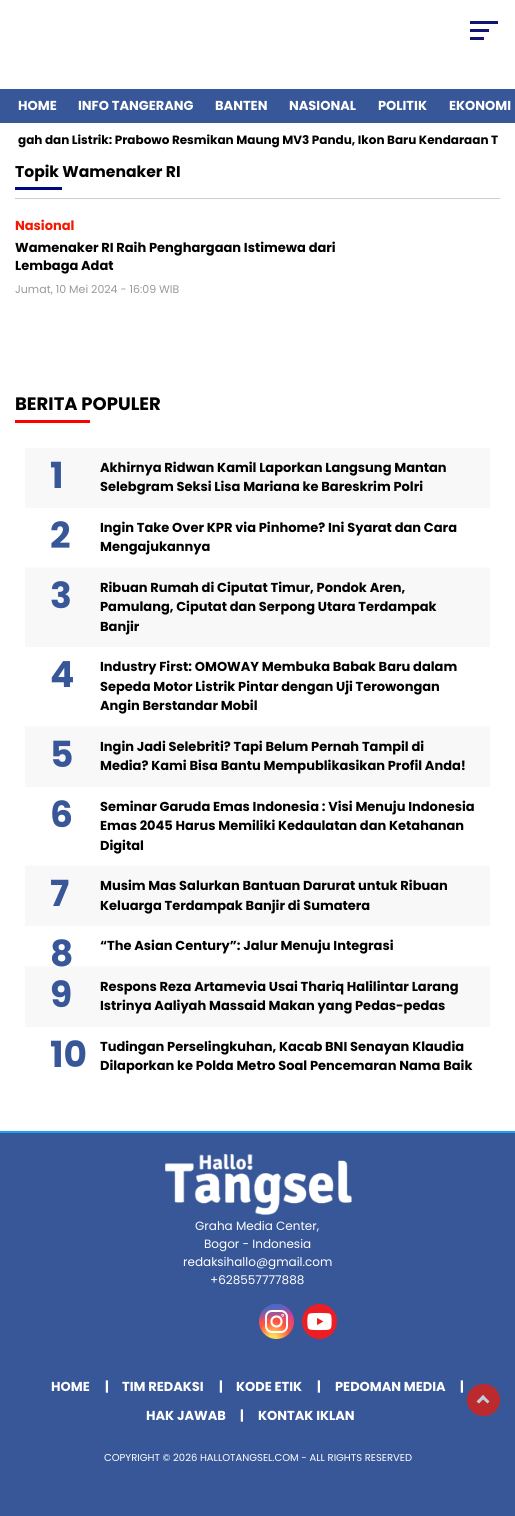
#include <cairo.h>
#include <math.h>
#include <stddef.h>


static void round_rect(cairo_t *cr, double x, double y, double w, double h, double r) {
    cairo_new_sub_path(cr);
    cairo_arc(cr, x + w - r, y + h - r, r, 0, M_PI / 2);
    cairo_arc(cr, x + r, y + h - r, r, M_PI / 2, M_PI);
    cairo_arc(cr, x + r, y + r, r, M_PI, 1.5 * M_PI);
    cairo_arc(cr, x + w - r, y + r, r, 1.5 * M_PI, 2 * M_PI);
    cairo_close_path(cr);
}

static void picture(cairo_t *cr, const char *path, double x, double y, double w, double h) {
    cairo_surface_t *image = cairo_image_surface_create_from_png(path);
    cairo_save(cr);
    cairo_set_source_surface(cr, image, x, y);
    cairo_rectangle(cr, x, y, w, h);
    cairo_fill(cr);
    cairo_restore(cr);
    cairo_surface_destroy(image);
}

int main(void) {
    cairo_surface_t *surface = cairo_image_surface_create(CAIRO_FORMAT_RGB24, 515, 1516);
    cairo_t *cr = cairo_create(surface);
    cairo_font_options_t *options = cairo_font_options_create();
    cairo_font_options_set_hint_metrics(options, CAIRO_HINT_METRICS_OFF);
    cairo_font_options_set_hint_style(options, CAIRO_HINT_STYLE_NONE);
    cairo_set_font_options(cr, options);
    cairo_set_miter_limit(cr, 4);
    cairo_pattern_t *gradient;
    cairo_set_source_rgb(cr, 1, 1, 1);
    cairo_paint(cr);
    cairo_set_source_rgb(cr, 0.075, 0.075, 0.451);
    cairo_rectangle(cr, 470, 21, 28, 3);
    cairo_fill(cr);
    cairo_rectangle(cr, 470, 29, 19, 3);
    cairo_fill(cr);
    cairo_rectangle(cr, 470, 37, 14, 3);
    cairo_fill(cr);
    cairo_set_source_rgb(cr, 0.22, 0.341, 0.596);
    cairo_rectangle(cr, 0, 89, 515, 34);
    cairo_fill(cr);
    cairo_select_font_face(cr, "Poppins", CAIRO_FONT_SLANT_NORMAL, CAIRO_FONT_WEIGHT_BOLD);
    cairo_set_font_size(cr, 13);
    cairo_set_source_rgb(cr, 1, 1, 1);
    cairo_move_to(cr, 18, 110);
    cairo_show_text(cr, "HOME");
    cairo_move_to(cr, 78, 110);
    cairo_show_text(cr, "INFO TANGERANG");
    cairo_move_to(cr, 215, 110);
    cairo_show_text(cr, "BANTEN");
    cairo_move_to(cr, 289, 110);
    cairo_show_text(cr, "NASIONAL");
    cairo_move_to(cr, 378, 110);
    cairo_show_text(cr, "POLITIK");
    cairo_move_to(cr, 449, 110);
    cairo_show_text(cr, "EKONOMI");
    cairo_set_font_size(cr, 12);
    cairo_set_source_rgb(cr, 0, 0, 0);
    cairo_move_to(cr, 18, 144);
    cairo_show_text(cr, "gah dan Listrik: Prabowo Resmikan Maung MV3 Pandu, Ikon Baru Kendaraan T");
    cairo_set_source_rgb(cr, 0.8, 0.8, 0.8);
    cairo_rectangle(cr, 15, 198, 485, 1);
    cairo_fill(cr);
    cairo_set_font_size(cr, 15.6);
    cairo_set_source_rgb(cr, 0, 0, 0);
    cairo_move_to(cr, 15, 177);
    cairo_show_text(cr, "Topik Wamenaker RI");
    cairo_set_source_rgb(cr, 0.004, 0.039, 0.502);
    cairo_rectangle(cr, 15, 187, 47, 3);
    cairo_fill(cr);
    cairo_set_font_size(cr, 13);
    cairo_set_source_rgb(cr, 0.961, 0.09, 0);
    cairo_move_to(cr, 15, 230);
    cairo_show_text(cr, "Nasional");
    cairo_set_source_rgb(cr, 0, 0, 0);
    cairo_move_to(cr, 15, 252);
    cairo_show_text(cr, "Wamenaker RI Raih Penghargaan Istimewa dari");
    cairo_move_to(cr, 15, 270);
    cairo_show_text(cr, "Lembaga Adat");
    cairo_select_font_face(cr, "Poppins", CAIRO_FONT_SLANT_NORMAL, CAIRO_FONT_WEIGHT_NORMAL);
    cairo_set_font_size(cr, 11);
    cairo_set_source_rgb(cr, 0.6, 0.6, 0.6);
    cairo_move_to(cr, 15, 293);
    cairo_show_text(cr, "Jumat, 10 Mei 2024 - 16:09 WIB");
    cairo_select_font_face(cr, "Poppins", CAIRO_FONT_SLANT_NORMAL, CAIRO_FONT_WEIGHT_BOLD);
    cairo_set_font_size(cr, 18);
    cairo_set_source_rgb(cr, 0, 0, 0);
    cairo_move_to(cr, 15, 410);
    cairo_show_text(cr, "BERITA POPULER");
    cairo_set_source_rgb(cr, 1, 0, 0);
    cairo_rectangle(cr, 15, 420, 75, 3);
    cairo_fill(cr);
    cairo_set_source_rgb(cr, 0.969, 0.969, 0.969);
    cairo_rectangle(cr, 25, 448, 465, 60);
    cairo_fill(cr);
    cairo_set_font_size(cr, 36);
    cairo_set_source_rgb(cr, 0.22, 0.341, 0.596);
    cairo_move_to(cr, 50, 488);
    cairo_show_text(cr, "1");
    cairo_set_font_size(cr, 13);
    cairo_set_source_rgb(cr, 0, 0, 0);
    cairo_move_to(cr, 100, 472);
    cairo_show_text(cr, "Akhirnya Ridwan Kamil Laporkan Langsung Mantan");
    cairo_move_to(cr, 100, 491);
    cairo_show_text(cr, "Selebgram Seksi Lisa Mariana ke Bareskrim Polri");
    cairo_new_path(cr);
    cairo_move_to(cr, 25, 567.5);
    cairo_line_to(cr, 490, 567.5);
    cairo_set_source_rgb(cr, 0.969, 0.969, 0.969);
    cairo_set_line_width(cr, 1);
    cairo_set_dash(cr, (double[]){1, 1}, 2, 0);
    cairo_stroke(cr);
    cairo_set_font_size(cr, 36);
    cairo_set_source_rgb(cr, 0.22, 0.341, 0.596);
    cairo_move_to(cr, 50, 548);
    cairo_show_text(cr, "2");
    cairo_set_font_size(cr, 13);
    cairo_set_source_rgb(cr, 0, 0, 0);
    cairo_move_to(cr, 100, 532);
    cairo_show_text(cr, "Ingin Take Over KPR via Pinhome? Ini Syarat dan Cara");
    cairo_move_to(cr, 100, 551);
    cairo_show_text(cr, "Mengajukannya");
    cairo_set_source_rgb(cr, 0.969, 0.969, 0.969);
    cairo_rectangle(cr, 25, 568, 465, 79);
    cairo_fill(cr);
    cairo_set_font_size(cr, 36);
    cairo_set_source_rgb(cr, 0.22, 0.341, 0.596);
    cairo_move_to(cr, 50, 608);
    cairo_show_text(cr, "3");
    cairo_set_font_size(cr, 13);
    cairo_set_source_rgb(cr, 0, 0, 0);
    cairo_move_to(cr, 100, 592);
    cairo_show_text(cr, "Ribuan Rumah di Ciputat Timur, Pondok Aren,");
    cairo_move_to(cr, 100, 611);
    cairo_show_text(cr, "Pamulang, Ciputat dan Serpong Utara Terdampak");
    cairo_move_to(cr, 100, 631);
    cairo_show_text(cr, "Banjir");
    cairo_new_path(cr);
    cairo_move_to(cr, 25, 726.5);
    cairo_line_to(cr, 490, 726.5);
    cairo_set_source_rgb(cr, 0.969, 0.969, 0.969);
    cairo_stroke(cr);
    cairo_set_font_size(cr, 36);
    cairo_set_source_rgb(cr, 0.22, 0.341, 0.596);
    cairo_move_to(cr, 50, 687);
    cairo_show_text(cr, "4");
    cairo_set_font_size(cr, 13);
    cairo_set_source_rgb(cr, 0, 0, 0);
    cairo_move_to(cr, 100, 671);
    cairo_show_text(cr, "Industry First: OMOWAY Membuka Babak Baru dalam");
    cairo_move_to(cr, 100, 691);
    cairo_show_text(cr, "Sepeda Motor Listrik Pintar dengan Uji Terowongan");
    cairo_move_to(cr, 100, 710);
    cairo_show_text(cr, "Angin Berstandar Mobil");
    cairo_set_source_rgb(cr, 0.969, 0.969, 0.969);
    cairo_rectangle(cr, 25, 727, 465, 60);
    cairo_fill(cr);
    cairo_set_font_size(cr, 36);
    cairo_set_source_rgb(cr, 0.22, 0.341, 0.596);
    cairo_move_to(cr, 50, 767);
    cairo_show_text(cr, "5");
    cairo_set_font_size(cr, 13);
    cairo_set_source_rgb(cr, 0, 0, 0);
    cairo_move_to(cr, 100, 751);
    cairo_show_text(cr, "Ingin Jadi Selebriti? Tapi Belum Pernah Tampil di");
    cairo_move_to(cr, 100, 770);
    cairo_show_text(cr, "Media? Kami Bisa Bantu Mempublikasikan Profil Anda!");
    cairo_new_path(cr);
    cairo_move_to(cr, 25, 865.5);
    cairo_line_to(cr, 490, 865.5);
    cairo_set_source_rgb(cr, 0.969, 0.969, 0.969);
    cairo_stroke(cr);
    cairo_set_font_size(cr, 36);
    cairo_set_source_rgb(cr, 0.22, 0.341, 0.596);
    cairo_move_to(cr, 50, 827);
    cairo_show_text(cr, "6");
    cairo_set_font_size(cr, 13);
    cairo_set_source_rgb(cr, 0, 0, 0);
    cairo_move_to(cr, 100, 811);
    cairo_show_text(cr, "Seminar Garuda Emas Indonesia : Visi Menuju Indonesia");
    cairo_move_to(cr, 100, 830);
    cairo_show_text(cr, "Emas 2045 Harus Memiliki Kedaulatan dan Ketahanan");
    cairo_move_to(cr, 100, 850);
    cairo_show_text(cr, "Digital");
    cairo_set_source_rgb(cr, 0.969, 0.969, 0.969);
    cairo_rectangle(cr, 25, 866, 465, 60);
    cairo_fill(cr);
    cairo_set_font_size(cr, 36);
    cairo_set_source_rgb(cr, 0.22, 0.341, 0.596);
    cairo_move_to(cr, 50, 906);
    cairo_show_text(cr, "7");
    cairo_set_font_size(cr, 13);
    cairo_set_source_rgb(cr, 0, 0, 0);
    cairo_move_to(cr, 100, 890);
    cairo_show_text(cr, "Musim Mas Salurkan Bantuan Darurat untuk Ribuan");
    cairo_move_to(cr, 100, 910);
    cairo_show_text(cr, "Keluarga Terdampak Banjir di Sumatera");
    cairo_new_path(cr);
    cairo_move_to(cr, 25, 966.5);
    cairo_line_to(cr, 490, 966.5);
    cairo_set_source_rgb(cr, 0.969, 0.969, 0.969);
    cairo_stroke(cr);
    cairo_set_font_size(cr, 36);
    cairo_set_source_rgb(cr, 0.22, 0.341, 0.596);
    cairo_move_to(cr, 50, 966);
    cairo_show_text(cr, "8");
    cairo_set_font_size(cr, 13);
    cairo_set_source_rgb(cr, 0, 0, 0);
    cairo_move_to(cr, 100, 950);
    cairo_show_text(cr, "“The Asian Century”: Jalur Menuju Integrasi");
    cairo_set_source_rgb(cr, 0.969, 0.969, 0.969);
    cairo_rectangle(cr, 25, 967, 465, 60);
    cairo_fill(cr);
    cairo_set_font_size(cr, 36);
    cairo_set_source_rgb(cr, 0.22, 0.341, 0.596);
    cairo_move_to(cr, 50, 1007);
    cairo_show_text(cr, "9");
    cairo_set_font_size(cr, 13);
    cairo_set_source_rgb(cr, 0, 0, 0);
    cairo_move_to(cr, 100, 991);
    cairo_show_text(cr, "Respons Reza Artamevia Usai Thariq Halilintar Larang");
    cairo_move_to(cr, 100, 1010);
    cairo_show_text(cr, "Istrinya Aaliyah Massaid Makan yang Pedas-pedas");
    cairo_set_font_size(cr, 36);
    cairo_set_source_rgb(cr, 0.22, 0.341, 0.596);
    cairo_move_to(cr, 50, 1067);
    cairo_show_text(cr, "10");
    cairo_set_font_size(cr, 13);
    cairo_set_source_rgb(cr, 0, 0, 0);
    cairo_move_to(cr, 100, 1051);
    cairo_show_text(cr, "Tudingan Perselingkuhan, Kacab BNI Senayan Klaudia");
    cairo_move_to(cr, 100, 1070);
    cairo_show_text(cr, "Dilaporkan ke Polda Metro Soal Pencemaran Nama Baik");
    cairo_set_source_rgb(cr, 0.22, 0.341, 0.596);
    cairo_rectangle(cr, 0, 1133, 515, 383);
    cairo_fill(cr);
    cairo_set_source_rgb(cr, 0.11, 0.635, 0.953);
    cairo_rectangle(cr, 0, 1131, 515, 2);
    cairo_fill(cr);
    picture(cr, "img1.png", 165, 1153, 187, 62);
    cairo_select_font_face(cr, "Poppins", CAIRO_FONT_SLANT_NORMAL, CAIRO_FONT_WEIGHT_NORMAL);
    cairo_set_font_size(cr, 12);
    cairo_set_source_rgb(cr, 1, 1, 1);
    cairo_move_to(cr, 195, 1230);
    cairo_show_text(cr, "Graha Media Center,");
    cairo_move_to(cr, 204, 1248);
    cairo_show_text(cr, "Bogor - Indonesia");
    cairo_move_to(cr, 183, 1266);
    cairo_show_text(cr, "redaksihallo@gmail.com");
    cairo_move_to(cr, 210, 1284);
    cairo_show_text(cr, "+628557777888");
    gradient = cairo_pattern_create_radial(273, 1339, 0, 273, 1339, 35);
    cairo_pattern_add_color_stop_rgba(gradient, 0.1, 1, 0.867, 0.333, 1);
    cairo_pattern_add_color_stop_rgba(gradient, 0.5, 1, 0.329, 0.243, 1);
    cairo_pattern_add_color_stop_rgba(gradient, 1, 0.784, 0.216, 0.671, 1);
    cairo_set_source(cr, gradient);
    cairo_pattern_destroy(gradient);
    cairo_new_path(cr);
    cairo_arc(cr, 276.5, 1321.5, 17.5, 0, 2 * M_PI);
    cairo_fill(cr);
    gradient = cairo_pattern_create_linear(259, 1304, 266, 1339);
    cairo_pattern_add_color_stop_rgba(gradient, 0.1, 0.216, 0.443, 0.784, 1);
    cairo_pattern_add_color_stop_rgba(gradient, 0.5, 0.216, 0.443, 0.784, 0);
    cairo_set_source(cr, gradient);
    cairo_pattern_destroy(gradient);
    cairo_arc(cr, 276.5, 1321.5, 17.5, 0, 2 * M_PI);
    cairo_fill(cr);
    round_rect(cr, 266, 1311, 21, 21, 6);
    cairo_set_source_rgb(cr, 1, 1, 1);
    cairo_set_line_width(cr, 2);
    cairo_set_dash(cr, NULL, 0, 0);
    cairo_stroke(cr);
    cairo_arc(cr, 276.5, 1321.5, 5, 0, 2 * M_PI);
    cairo_set_line_width(cr, 2.1);
    cairo_stroke(cr);
    cairo_arc(cr, 282.7, 1315.3, 0.4, 0, 2 * M_PI);
    cairo_stroke(cr);
    picture(cr, "img2.png", 302, 1304, 35, 35);
    cairo_select_font_face(cr, "Poppins", CAIRO_FONT_SLANT_NORMAL, CAIRO_FONT_WEIGHT_BOLD);
    cairo_set_font_size(cr, 13);
    cairo_move_to(cr, 51, 1391);
    cairo_show_text(cr, "HOME");
    cairo_move_to(cr, 105, 1391);
    cairo_show_text(cr, "|");
    cairo_move_to(cr, 122, 1391);
    cairo_show_text(cr, "TIM REDAKSI");
    cairo_move_to(cr, 219, 1391);
    cairo_show_text(cr, "|");
    cairo_move_to(cr, 236, 1391);
    cairo_show_text(cr, "KODE ETIK");
    cairo_move_to(cr, 317, 1391);
    cairo_show_text(cr, "|");
    cairo_move_to(cr, 335, 1391);
    cairo_show_text(cr, "PEDOMAN MEDIA");
    cairo_move_to(cr, 460, 1391);
    cairo_show_text(cr, "|");
    cairo_move_to(cr, 146, 1420);
    cairo_show_text(cr, "HAK JAWAB");
    cairo_move_to(cr, 240, 1420);
    cairo_show_text(cr, "|");
    cairo_move_to(cr, 258, 1420);
    cairo_show_text(cr, "KONTAK IKLAN");
    cairo_select_font_face(cr, "Poppins", CAIRO_FONT_SLANT_NORMAL, CAIRO_FONT_WEIGHT_NORMAL);
    cairo_set_font_size(cr, 10);
    cairo_move_to(cr, 104, 1461);
    cairo_show_text(cr, "COPYRIGHT © 2026 HALLOTANGSEL.COM - ALL RIGHTS RESERVED");
    cairo_set_source_rgb(cr, 0.737, 0.165, 0.18);
    round_rect(cr, 467, 1384, 33, 32, 16);
    cairo_fill(cr);
    cairo_set_source_rgb(cr, 0.765, 0.804, 0.878);
    cairo_new_path(cr);
    cairo_move_to(cr, 479, 1403.5);
    cairo_line_to(cr, 476.5, 1401.5);
    cairo_line_to(cr, 483, 1395);
    cairo_line_to(cr, 485, 1397.5);
    cairo_close_path(cr);
    cairo_fill(cr);
    cairo_new_path(cr);
    cairo_move_to(cr, 487.5, 1403.5);
    cairo_line_to(cr, 481, 1397.5);
    cairo_line_to(cr, 483, 1395);
    cairo_line_to(cr, 489.5, 1401.5);
    cairo_close_path(cr);
    cairo_fill(cr);
    cairo_surface_write_to_png(surface, "page.png");
    cairo_font_options_destroy(options);
    cairo_destroy(cr);
    cairo_surface_destroy(surface);
    return 0;
}
